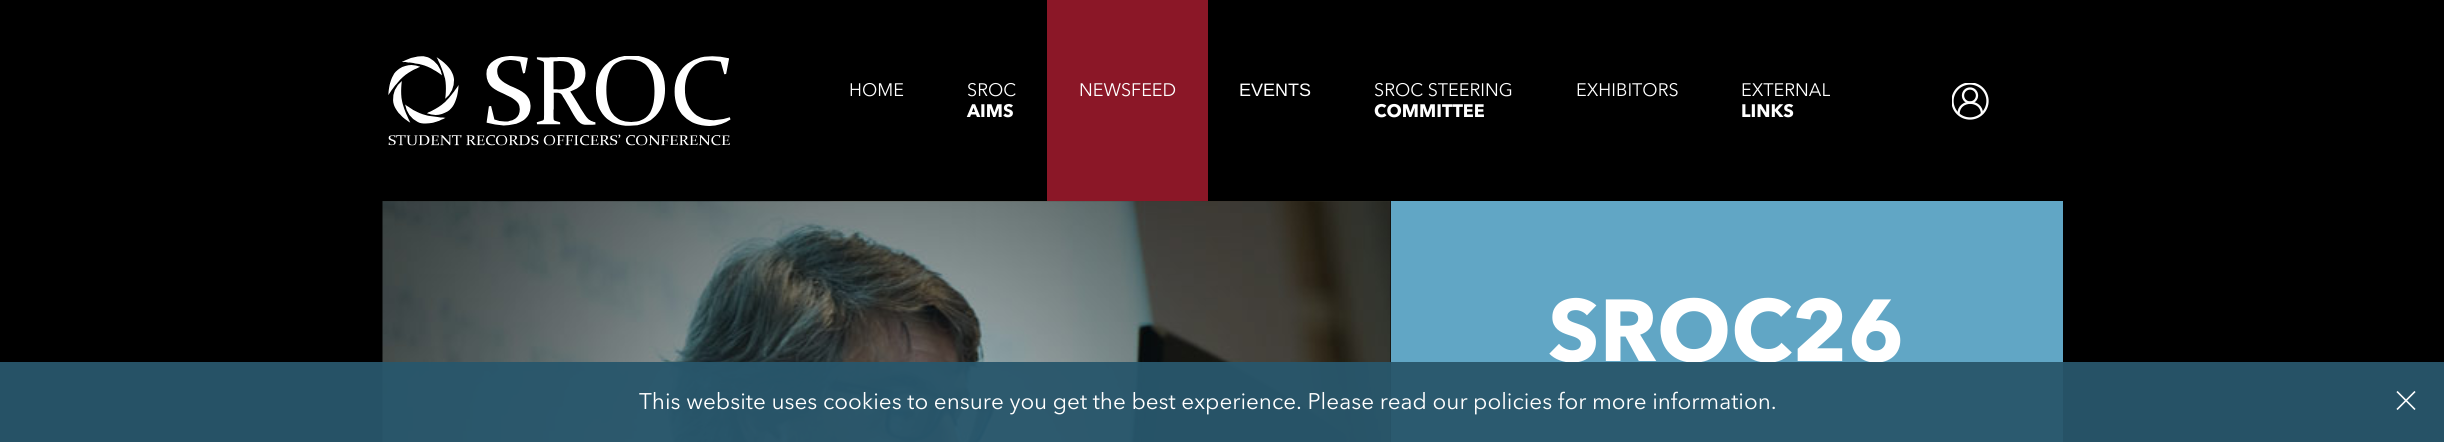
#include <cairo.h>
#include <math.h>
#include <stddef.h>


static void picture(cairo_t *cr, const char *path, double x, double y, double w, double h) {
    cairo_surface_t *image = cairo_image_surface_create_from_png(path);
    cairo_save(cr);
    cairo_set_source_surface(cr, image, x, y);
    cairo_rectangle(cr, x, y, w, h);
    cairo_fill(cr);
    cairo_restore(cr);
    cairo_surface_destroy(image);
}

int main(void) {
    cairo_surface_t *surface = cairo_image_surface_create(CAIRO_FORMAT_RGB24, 2444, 442);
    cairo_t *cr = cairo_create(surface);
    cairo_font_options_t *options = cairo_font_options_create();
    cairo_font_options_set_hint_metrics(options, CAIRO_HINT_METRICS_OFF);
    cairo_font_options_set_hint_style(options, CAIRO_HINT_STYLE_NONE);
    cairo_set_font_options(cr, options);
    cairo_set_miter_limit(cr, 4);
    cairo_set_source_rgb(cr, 0, 0, 0);
    cairo_paint(cr);
    picture(cr, "img1.png", 388, 56, 343, 90);
    cairo_select_font_face(cr, "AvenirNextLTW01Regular", CAIRO_FONT_SLANT_NORMAL, CAIRO_FONT_WEIGHT_NORMAL);
    cairo_set_font_size(cr, 18);
    cairo_set_source_rgb(cr, 1, 1, 1);
    cairo_move_to(cr, 849, 96);
    cairo_show_text(cr, "HOME");
    cairo_move_to(cr, 967, 96);
    cairo_show_text(cr, "SROC");
    cairo_select_font_face(cr, "Avenir Next", CAIRO_FONT_SLANT_NORMAL, CAIRO_FONT_WEIGHT_BOLD);
    cairo_move_to(cr, 967, 117);
    cairo_show_text(cr, "AIMS");
    cairo_set_source_rgb(cr, 0.545, 0.09, 0.153);
    cairo_rectangle(cr, 1047, 0, 161, 201);
    cairo_fill(cr);
    cairo_select_font_face(cr, "AvenirNextLTW01Regular", CAIRO_FONT_SLANT_NORMAL, CAIRO_FONT_WEIGHT_NORMAL);
    cairo_set_source_rgb(cr, 1, 1, 1);
    cairo_move_to(cr, 1079, 96);
    cairo_show_text(cr, "NEWSFEED");
    cairo_select_font_face(cr, "Liberation Sans", CAIRO_FONT_SLANT_NORMAL, CAIRO_FONT_WEIGHT_NORMAL);
    cairo_move_to(cr, 1239, 96);
    cairo_show_text(cr, "EVENTS");
    cairo_select_font_face(cr, "AvenirNextLTW01Regular", CAIRO_FONT_SLANT_NORMAL, CAIRO_FONT_WEIGHT_NORMAL);
    cairo_move_to(cr, 1374, 96);
    cairo_show_text(cr, "SROC STEERING");
    cairo_select_font_face(cr, "Avenir Next", CAIRO_FONT_SLANT_NORMAL, CAIRO_FONT_WEIGHT_BOLD);
    cairo_move_to(cr, 1374, 117);
    cairo_show_text(cr, "COMMITTEE");
    cairo_select_font_face(cr, "AvenirNextLTW01Regular", CAIRO_FONT_SLANT_NORMAL, CAIRO_FONT_WEIGHT_NORMAL);
    cairo_move_to(cr, 1576, 96);
    cairo_show_text(cr, "EXHIBITORS");
    cairo_move_to(cr, 1741, 96);
    cairo_show_text(cr, "EXTERNAL");
    cairo_select_font_face(cr, "Avenir Next", CAIRO_FONT_SLANT_NORMAL, CAIRO_FONT_WEIGHT_BOLD);
    cairo_move_to(cr, 1741, 117);
    cairo_show_text(cr, "LINKS");
    cairo_save(cr);
    cairo_rectangle(cr, 1952, 83, 37, 37);
    cairo_clip(cr);
    cairo_arc(cr, 1970, 101, 17.5, 0, 2 * M_PI);
    cairo_set_line_width(cr, 2.3);
    cairo_stroke(cr);
    cairo_restore(cr);
    cairo_new_path(cr);
    cairo_move_to(cr, 1982, 114);
    cairo_curve_to(cr, 1982, 99, 1958.5, 99, 1958.5, 114);
    cairo_set_line_width(cr, 2.3);
    cairo_set_line_join(cr, CAIRO_LINE_JOIN_ROUND);
    cairo_stroke(cr);
    cairo_arc(cr, 1970, 95.5, 7, 0, 2 * M_PI);
    cairo_set_line_join(cr, CAIRO_LINE_JOIN_MITER);
    cairo_stroke(cr);
    picture(cr, "img2.png", 382, 201, 1009, 241);
    cairo_set_source_rgb(cr, 0.38, 0.651, 0.773);
    cairo_rectangle(cr, 1391, 201, 672, 241);
    cairo_fill(cr);
    cairo_set_font_size(cr, 87);
    cairo_set_source_rgb(cr, 1, 1, 1);
    cairo_move_to(cr, 1548, 361);
    cairo_show_text(cr, "SROC26");
    cairo_set_source_rgba(cr, 0.157, 0.341, 0.42, 0.95);
    cairo_rectangle(cr, 0, 362, 2444, 80);
    cairo_fill(cr);
    cairo_select_font_face(cr, "AvenirNextLTW01Regular", CAIRO_FONT_SLANT_NORMAL, CAIRO_FONT_WEIGHT_NORMAL);
    cairo_set_font_size(cr, 22.5);
    cairo_set_source_rgb(cr, 1, 1, 1);
    cairo_move_to(cr, 639, 409);
    cairo_show_text(cr, "This website uses cookies to ensure you get the best experience. Please read our policies for more information.");
    cairo_new_path(cr);
    cairo_move_to(cr, 2415, 409.5);
    cairo_line_to(cr, 2397, 391.5);
    cairo_move_to(cr, 2415, 391.5);
    cairo_line_to(cr, 2397, 409.5);
    cairo_set_line_width(cr, 1.6);
    cairo_stroke(cr);
    cairo_surface_write_to_png(surface, "page.png");
    cairo_font_options_destroy(options);
    cairo_destroy(cr);
    cairo_surface_destroy(surface);
    return 0;
}
